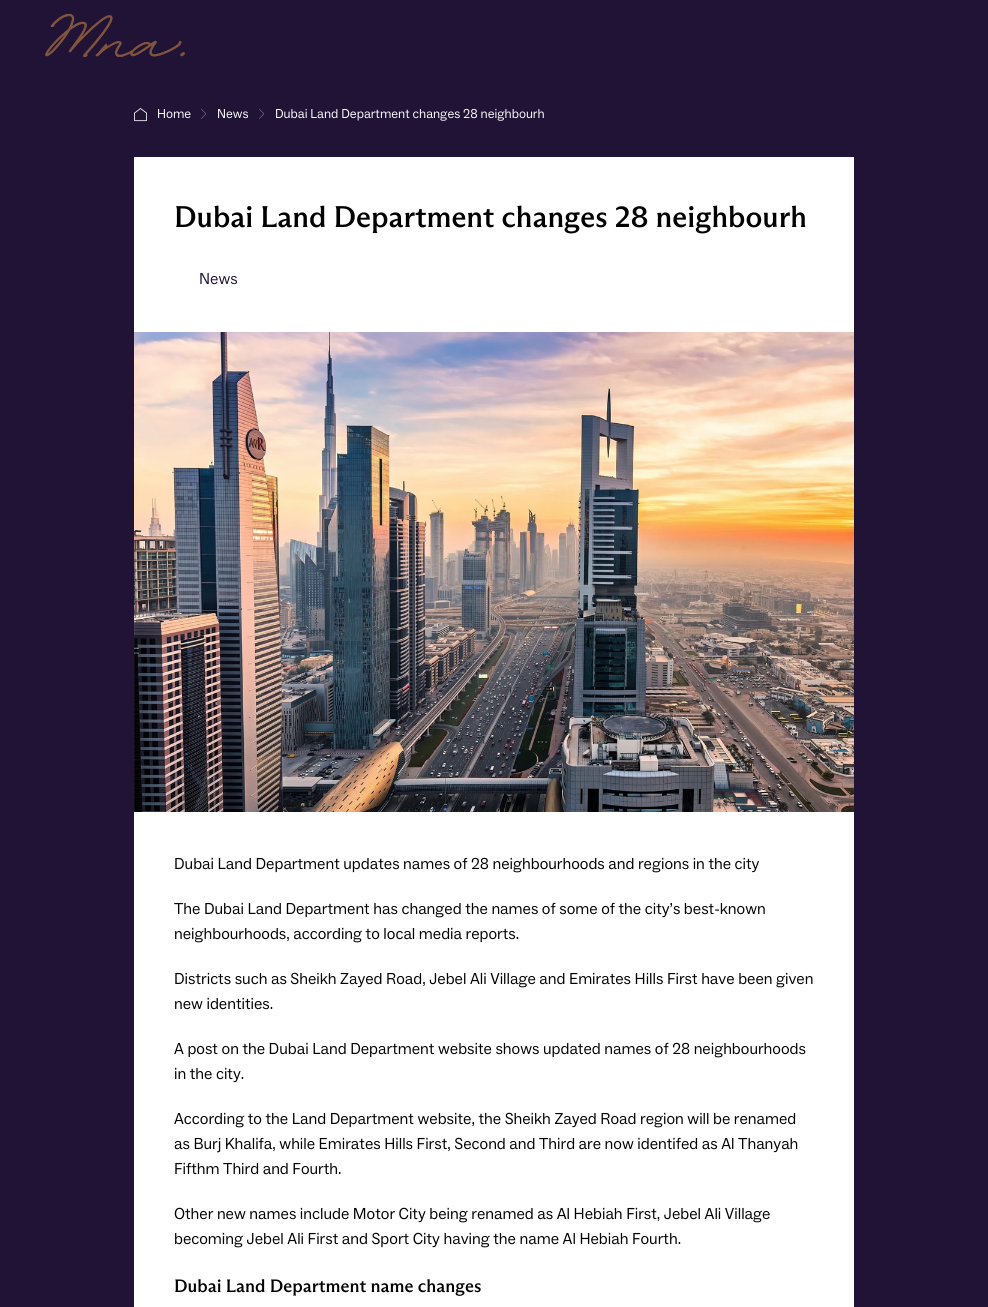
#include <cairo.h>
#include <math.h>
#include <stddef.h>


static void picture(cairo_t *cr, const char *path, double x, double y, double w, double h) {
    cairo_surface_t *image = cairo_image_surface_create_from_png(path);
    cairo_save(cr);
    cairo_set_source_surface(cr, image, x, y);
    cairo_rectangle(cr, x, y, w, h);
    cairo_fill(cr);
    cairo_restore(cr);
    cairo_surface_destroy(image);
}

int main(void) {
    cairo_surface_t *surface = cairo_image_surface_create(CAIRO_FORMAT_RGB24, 988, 1307);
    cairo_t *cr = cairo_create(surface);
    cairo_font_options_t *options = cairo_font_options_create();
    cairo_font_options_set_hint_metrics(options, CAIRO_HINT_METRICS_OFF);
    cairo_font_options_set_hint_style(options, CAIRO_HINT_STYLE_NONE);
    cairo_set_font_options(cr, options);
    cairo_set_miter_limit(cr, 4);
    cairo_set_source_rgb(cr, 0.125, 0.078, 0.212);
    cairo_paint(cr);
    picture(cr, "img1.png", 45, 13, 140, 44);
    picture(cr, "img2.png", 134, 108, 13, 14);
    cairo_select_font_face(cr, "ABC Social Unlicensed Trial", CAIRO_FONT_SLANT_NORMAL, CAIRO_FONT_WEIGHT_NORMAL);
    cairo_set_font_size(cr, 13);
    cairo_set_source_rgb(cr, 1, 1, 1);
    cairo_move_to(cr, 157, 118);
    cairo_show_text(cr, "Home");
    picture(cr, "img3.png", 201, 108, 6, 11);
    cairo_move_to(cr, 217, 118);
    cairo_show_text(cr, "News");
    picture(cr, "img3.png", 259, 108, 6, 11);
    cairo_move_to(cr, 275, 118);
    cairo_show_text(cr, "Dubai Land Department changes 28 neighbourh");
    cairo_rectangle(cr, 134, 157, 720, 1150);
    cairo_fill(cr);
    cairo_select_font_face(cr, "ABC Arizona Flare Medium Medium", CAIRO_FONT_SLANT_NORMAL, CAIRO_FONT_WEIGHT_NORMAL);
    cairo_set_font_size(cr, 30);
    cairo_set_source_rgb(cr, 0, 0, 0);
    cairo_move_to(cr, 174, 227);
    cairo_show_text(cr, "Dubai Land Department changes 28 neighbourh");
    cairo_select_font_face(cr, "ABC Social Unlicensed Trial", CAIRO_FONT_SLANT_NORMAL, CAIRO_FONT_WEIGHT_NORMAL);
    cairo_set_font_size(cr, 16);
    cairo_set_source_rgb(cr, 0.125, 0.078, 0.212);
    cairo_move_to(cr, 199, 284);
    cairo_show_text(cr, "News");
    picture(cr, "img4.png", 134, 332, 720, 480);
    cairo_set_source_rgb(cr, 0, 0, 0);
    cairo_move_to(cr, 174, 869);
    cairo_show_text(cr, "Dubai Land Department updates names of 28 neighbourhoods and regions in the city");
    cairo_move_to(cr, 174, 914);
    cairo_show_text(cr, "The Dubai Land Department has changed the names of some of the city’s best-known");
    cairo_move_to(cr, 174, 939);
    cairo_show_text(cr, "neighbourhoods, according to local media reports.");
    cairo_move_to(cr, 174, 984);
    cairo_show_text(cr, "Districts such as Sheikh Zayed Road, Jebel Ali Village and Emirates Hills First have been given");
    cairo_move_to(cr, 174, 1009);
    cairo_show_text(cr, "new identities.");
    cairo_move_to(cr, 174, 1054);
    cairo_show_text(cr, "A post on the Dubai Land Department website shows updated names of 28 neighbourhoods");
    cairo_move_to(cr, 174, 1079);
    cairo_show_text(cr, "in the city.");
    cairo_move_to(cr, 174, 1124);
    cairo_show_text(cr, "According to the Land Department website, the Sheikh Zayed Road region will be renamed");
    cairo_move_to(cr, 174, 1149);
    cairo_show_text(cr, "as Burj Khalifa, while Emirates Hills First, Second and Third are now identifed as Al Thanyah");
    cairo_move_to(cr, 174, 1174);
    cairo_show_text(cr, "Fifthm Third and Fourth.");
    cairo_move_to(cr, 174, 1219);
    cairo_show_text(cr, "Other new names include Motor City being renamed as Al Hebiah First, Jebel Ali Village");
    cairo_move_to(cr, 174, 1244);
    cairo_show_text(cr, "becoming Jebel Ali First and Sport City having the name Al Hebiah Fourth.");
    cairo_select_font_face(cr, "ABC Arizona Flare Medium Medium", CAIRO_FONT_SLANT_NORMAL, CAIRO_FONT_WEIGHT_NORMAL);
    cairo_set_font_size(cr, 18);
    cairo_move_to(cr, 174, 1292);
    cairo_show_text(cr, "Dubai Land Department name changes");
    cairo_surface_write_to_png(surface, "page.png");
    cairo_font_options_destroy(options);
    cairo_destroy(cr);
    cairo_surface_destroy(surface);
    return 0;
}
